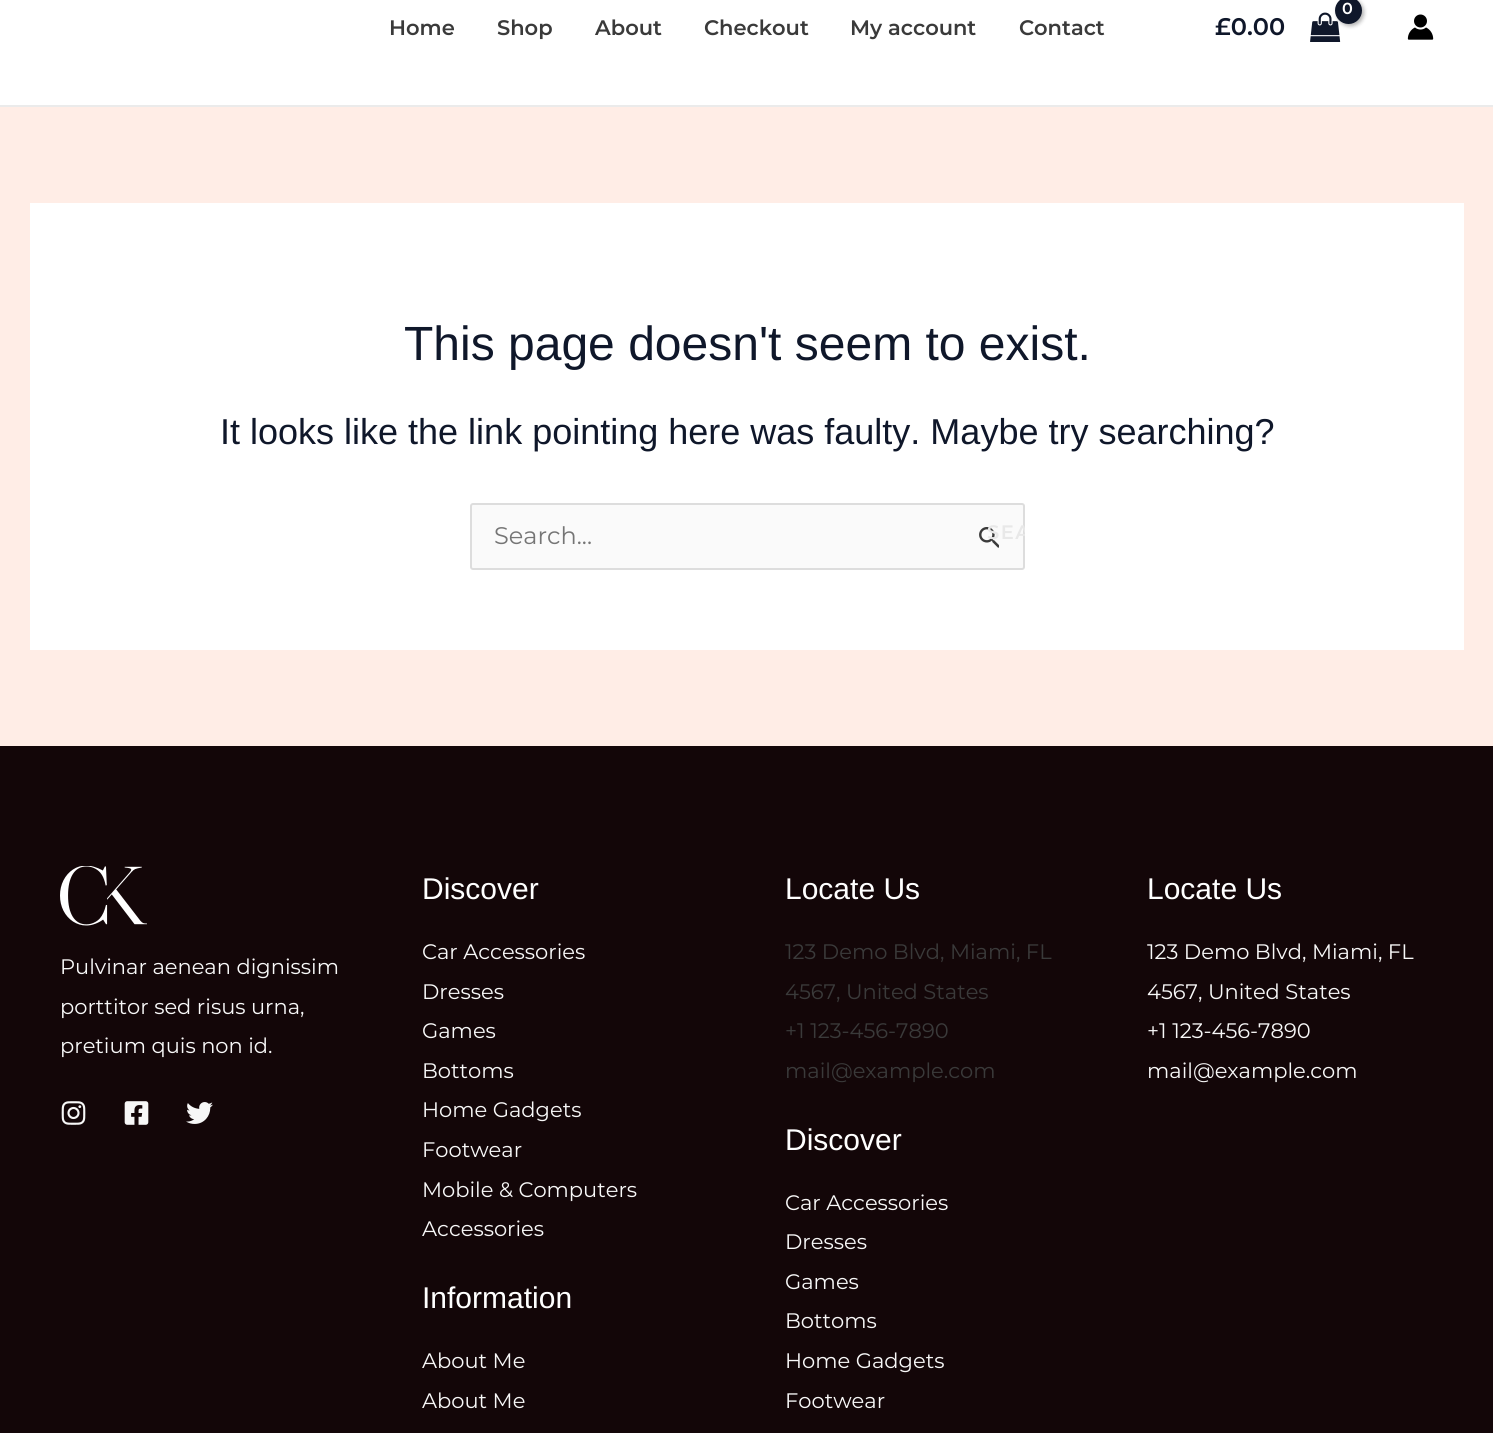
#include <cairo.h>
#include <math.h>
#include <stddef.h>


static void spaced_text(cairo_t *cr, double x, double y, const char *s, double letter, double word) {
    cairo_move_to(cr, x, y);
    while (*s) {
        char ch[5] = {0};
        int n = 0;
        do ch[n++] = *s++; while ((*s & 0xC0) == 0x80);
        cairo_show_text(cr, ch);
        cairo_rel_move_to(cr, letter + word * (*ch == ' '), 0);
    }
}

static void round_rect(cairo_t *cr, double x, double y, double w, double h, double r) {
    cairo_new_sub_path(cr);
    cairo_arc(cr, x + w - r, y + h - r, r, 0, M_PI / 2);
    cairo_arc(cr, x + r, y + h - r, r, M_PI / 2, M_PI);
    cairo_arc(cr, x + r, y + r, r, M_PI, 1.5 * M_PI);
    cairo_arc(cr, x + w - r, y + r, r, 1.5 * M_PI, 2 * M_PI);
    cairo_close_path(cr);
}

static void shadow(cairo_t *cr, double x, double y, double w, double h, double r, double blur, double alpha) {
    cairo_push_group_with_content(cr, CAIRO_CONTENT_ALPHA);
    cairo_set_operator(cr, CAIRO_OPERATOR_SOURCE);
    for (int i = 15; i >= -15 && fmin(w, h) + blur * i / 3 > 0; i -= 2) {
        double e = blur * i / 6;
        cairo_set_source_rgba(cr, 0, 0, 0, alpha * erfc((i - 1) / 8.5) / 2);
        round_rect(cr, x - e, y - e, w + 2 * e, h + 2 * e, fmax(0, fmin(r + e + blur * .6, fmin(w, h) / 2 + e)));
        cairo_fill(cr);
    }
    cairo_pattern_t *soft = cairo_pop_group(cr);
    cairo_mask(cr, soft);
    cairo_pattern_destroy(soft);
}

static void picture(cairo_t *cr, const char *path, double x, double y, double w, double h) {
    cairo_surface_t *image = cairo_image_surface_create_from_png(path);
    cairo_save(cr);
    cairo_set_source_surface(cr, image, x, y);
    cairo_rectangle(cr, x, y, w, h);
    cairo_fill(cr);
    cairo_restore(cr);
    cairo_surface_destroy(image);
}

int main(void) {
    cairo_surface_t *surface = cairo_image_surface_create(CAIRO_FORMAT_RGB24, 1493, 1433);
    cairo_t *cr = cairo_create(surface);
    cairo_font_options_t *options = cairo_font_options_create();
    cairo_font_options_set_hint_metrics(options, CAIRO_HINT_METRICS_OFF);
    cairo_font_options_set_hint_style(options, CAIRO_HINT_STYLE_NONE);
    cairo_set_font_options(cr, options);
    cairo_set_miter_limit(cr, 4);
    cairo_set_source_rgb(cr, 1, 0.929, 0.902);
    cairo_paint(cr);
    cairo_set_source_rgb(cr, 1, 1, 1);
    cairo_rectangle(cr, 0, 0, 1493, 105);
    cairo_fill(cr);
    cairo_set_source_rgb(cr, 0.918, 0.918, 0.918);
    cairo_rectangle(cr, 0, 105, 1493, 2);
    cairo_fill(cr);
    cairo_select_font_face(cr, "Montserrat SemiBold", CAIRO_FONT_SLANT_NORMAL, CAIRO_FONT_WEIGHT_NORMAL);
    cairo_set_font_size(cr, 21);
    cairo_set_source_rgb(cr, 0.227, 0.227, 0.227);
    cairo_move_to(cr, 389, 35);
    cairo_show_text(cr, "Home");
    cairo_move_to(cr, 497, 35);
    cairo_show_text(cr, "Shop");
    cairo_move_to(cr, 595, 35);
    cairo_show_text(cr, "About");
    cairo_move_to(cr, 704, 35);
    cairo_show_text(cr, "Checkout");
    cairo_move_to(cr, 850, 35);
    cairo_show_text(cr, "My account");
    cairo_move_to(cr, 1019, 35);
    cairo_show_text(cr, "Contact");
    picture(cr, "img1.png", 1310, 12, 31, 30);
    cairo_set_source_rgb(cr, 0, 0, 0);
    shadow(cr, 1337, -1, 27, 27, 13.5, 2, 0.3);
    cairo_set_source_rgb(cr, 0.059, 0.09, 0.165);
    cairo_arc(cr, 1348.5, 10.5, 13.5, 0, 2 * M_PI);
    cairo_fill(cr);
    cairo_set_font_size(cr, 16);
    cairo_set_source_rgb(cr, 1, 1, 1);
    spaced_text(cr, 1342, 14, "0", -1, 0);
    cairo_set_font_size(cr, 24);
    cairo_set_source_rgb(cr, 0.059, 0.09, 0.165);
    cairo_move_to(cr, 1215, 35);
    cairo_show_text(cr, "£0.00");
    picture(cr, "img2.png", 1407, 14, 27, 26);
    cairo_set_source_rgb(cr, 1, 1, 1);
    cairo_rectangle(cr, 30, 203, 1434, 447);
    cairo_fill(cr);
    cairo_select_font_face(cr, "Liberation Sans", CAIRO_FONT_SLANT_NORMAL, CAIRO_FONT_WEIGHT_NORMAL);
    cairo_set_font_size(cr, 48);
    cairo_set_source_rgb(cr, 0.059, 0.09, 0.165);
    cairo_move_to(cr, 404, 360);
    cairo_show_text(cr, "This page doesn't seem to exist.");
    cairo_set_font_size(cr, 36);
    cairo_move_to(cr, 220, 444);
    cairo_show_text(cr, "It looks like the link pointing here was faulty. Maybe try searching?");
    cairo_set_source_rgb(cr, 0.98, 0.98, 0.98);
    round_rect(cr, 471, 504, 553, 65, 2);
    cairo_fill_preserve(cr);
    cairo_set_source_rgb(cr, 0.867, 0.867, 0.867);
    cairo_stroke(cr);
    cairo_select_font_face(cr, "Montserrat", CAIRO_FONT_SLANT_NORMAL, CAIRO_FONT_WEIGHT_NORMAL);
    cairo_set_font_size(cr, 24);
    cairo_set_source_rgb(cr, 0.459, 0.459, 0.459);
    cairo_move_to(cr, 494, 544);
    cairo_show_text(cr, "Search...");
    picture(cr, "img3.png", 979, 527, 20, 21);
    cairo_save(cr);
    round_rect(cr, 957, 503, 68, 58, 3);
    cairo_clip(cr);
    cairo_select_font_face(cr, "Montserrat SemiBold", CAIRO_FONT_SLANT_NORMAL, CAIRO_FONT_WEIGHT_NORMAL);
    cairo_set_font_size(cr, 19.5);
    cairo_set_source_rgb(cr, 0.91, 0.91, 0.91);
    spaced_text(cr, 987, 539, "SEA", 1.5, 0);
    cairo_restore(cr);
    cairo_set_source_rgb(cr, 0.078, 0.024, 0.035);
    cairo_rectangle(cr, 0, 746, 1493, 687);
    cairo_fill(cr);
    picture(cr, "img4.png", 60, 866, 87, 60);
    cairo_set_font_size(cr, 21);
    cairo_set_source_rgb(cr, 0.969, 0.969, 0.969);
    cairo_move_to(cr, 60, 974);
    cairo_show_text(cr, "Pulvinar aenean dignissim");
    cairo_move_to(cr, 60, 1014);
    cairo_show_text(cr, "porttitor sed risus urna,");
    cairo_move_to(cr, 60, 1053);
    cairo_show_text(cr, "pretium quis non id.");
    picture(cr, "img5.png", 61, 1101, 25, 24);
    picture(cr, "img6.png", 124, 1101, 25, 24);
    picture(cr, "img7.png", 186, 1102, 27, 22);
    cairo_select_font_face(cr, "Liberation Sans", CAIRO_FONT_SLANT_NORMAL, CAIRO_FONT_WEIGHT_NORMAL);
    cairo_set_font_size(cr, 30);
    cairo_set_source_rgb(cr, 1, 1, 1);
    cairo_move_to(cr, 422, 899);
    cairo_show_text(cr, "Discover");
    cairo_select_font_face(cr, "Montserrat", CAIRO_FONT_SLANT_NORMAL, CAIRO_FONT_WEIGHT_NORMAL);
    cairo_set_font_size(cr, 21);
    cairo_set_source_rgb(cr, 0.969, 0.969, 0.969);
    cairo_move_to(cr, 422, 959);
    cairo_show_text(cr, "Car Accessories");
    cairo_move_to(cr, 422, 999);
    cairo_show_text(cr, "Dresses");
    cairo_move_to(cr, 422, 1038);
    cairo_show_text(cr, "Games");
    cairo_move_to(cr, 422, 1078);
    cairo_show_text(cr, "Bottoms");
    cairo_move_to(cr, 422, 1117);
    cairo_show_text(cr, "Home Gadgets");
    cairo_move_to(cr, 422, 1157);
    cairo_show_text(cr, "Footwear");
    cairo_move_to(cr, 422, 1197);
    cairo_show_text(cr, "Mobile & Computers");
    cairo_move_to(cr, 422, 1236);
    cairo_show_text(cr, "Accessories");
    cairo_select_font_face(cr, "Liberation Sans", CAIRO_FONT_SLANT_NORMAL, CAIRO_FONT_WEIGHT_NORMAL);
    cairo_set_font_size(cr, 30);
    cairo_set_source_rgb(cr, 1, 1, 1);
    cairo_move_to(cr, 422, 1308);
    cairo_show_text(cr, "Information");
    cairo_select_font_face(cr, "Montserrat", CAIRO_FONT_SLANT_NORMAL, CAIRO_FONT_WEIGHT_NORMAL);
    cairo_set_font_size(cr, 21);
    cairo_set_source_rgb(cr, 0.969, 0.969, 0.969);
    cairo_move_to(cr, 422, 1368);
    cairo_show_text(cr, "About Me");
    cairo_move_to(cr, 422, 1408);
    cairo_show_text(cr, "About Me");
    cairo_select_font_face(cr, "Liberation Sans", CAIRO_FONT_SLANT_NORMAL, CAIRO_FONT_WEIGHT_NORMAL);
    cairo_set_font_size(cr, 30);
    cairo_set_source_rgb(cr, 1, 1, 1);
    cairo_move_to(cr, 785, 899);
    cairo_show_text(cr, "Locate Us");
    cairo_select_font_face(cr, "Montserrat", CAIRO_FONT_SLANT_NORMAL, CAIRO_FONT_WEIGHT_NORMAL);
    cairo_set_font_size(cr, 21);
    cairo_set_source_rgb(cr, 0.227, 0.227, 0.227);
    cairo_move_to(cr, 785, 959);
    cairo_show_text(cr, "123 Demo Blvd, Miami, FL");
    cairo_move_to(cr, 785, 999);
    cairo_show_text(cr, "4567, United States");
    cairo_move_to(cr, 785, 1038);
    cairo_show_text(cr, "+1 123-456-7890");
    cairo_move_to(cr, 785, 1078);
    cairo_show_text(cr, "mail@example.com");
    cairo_select_font_face(cr, "Liberation Sans", CAIRO_FONT_SLANT_NORMAL, CAIRO_FONT_WEIGHT_NORMAL);
    cairo_set_font_size(cr, 30);
    cairo_set_source_rgb(cr, 1, 1, 1);
    cairo_move_to(cr, 785, 1150);
    cairo_show_text(cr, "Discover");
    cairo_select_font_face(cr, "Montserrat", CAIRO_FONT_SLANT_NORMAL, CAIRO_FONT_WEIGHT_NORMAL);
    cairo_set_font_size(cr, 21);
    cairo_set_source_rgb(cr, 0.969, 0.969, 0.969);
    cairo_move_to(cr, 785, 1210);
    cairo_show_text(cr, "Car Accessories");
    cairo_move_to(cr, 785, 1249);
    cairo_show_text(cr, "Dresses");
    cairo_move_to(cr, 785, 1289);
    cairo_show_text(cr, "Games");
    cairo_move_to(cr, 785, 1328);
    cairo_show_text(cr, "Bottoms");
    cairo_move_to(cr, 785, 1368);
    cairo_show_text(cr, "Home Gadgets");
    cairo_move_to(cr, 785, 1408);
    cairo_show_text(cr, "Footwear");
    cairo_select_font_face(cr, "Liberation Sans", CAIRO_FONT_SLANT_NORMAL, CAIRO_FONT_WEIGHT_NORMAL);
    cairo_set_font_size(cr, 30);
    cairo_set_source_rgb(cr, 1, 1, 1);
    cairo_move_to(cr, 1147, 899);
    cairo_show_text(cr, "Locate Us");
    cairo_select_font_face(cr, "Montserrat", CAIRO_FONT_SLANT_NORMAL, CAIRO_FONT_WEIGHT_NORMAL);
    cairo_set_font_size(cr, 21);
    cairo_set_source_rgb(cr, 0.969, 0.969, 0.969);
    cairo_move_to(cr, 1147, 959);
    cairo_show_text(cr, "123 Demo Blvd, Miami, FL");
    cairo_move_to(cr, 1147, 999);
    cairo_show_text(cr, "4567, United States");
    cairo_move_to(cr, 1147, 1038);
    cairo_show_text(cr, "+1 123-456-7890");
    cairo_move_to(cr, 1147, 1078);
    cairo_show_text(cr, "mail@example.com");
    cairo_surface_write_to_png(surface, "page.png");
    cairo_font_options_destroy(options);
    cairo_destroy(cr);
    cairo_surface_destroy(surface);
    return 0;
}
